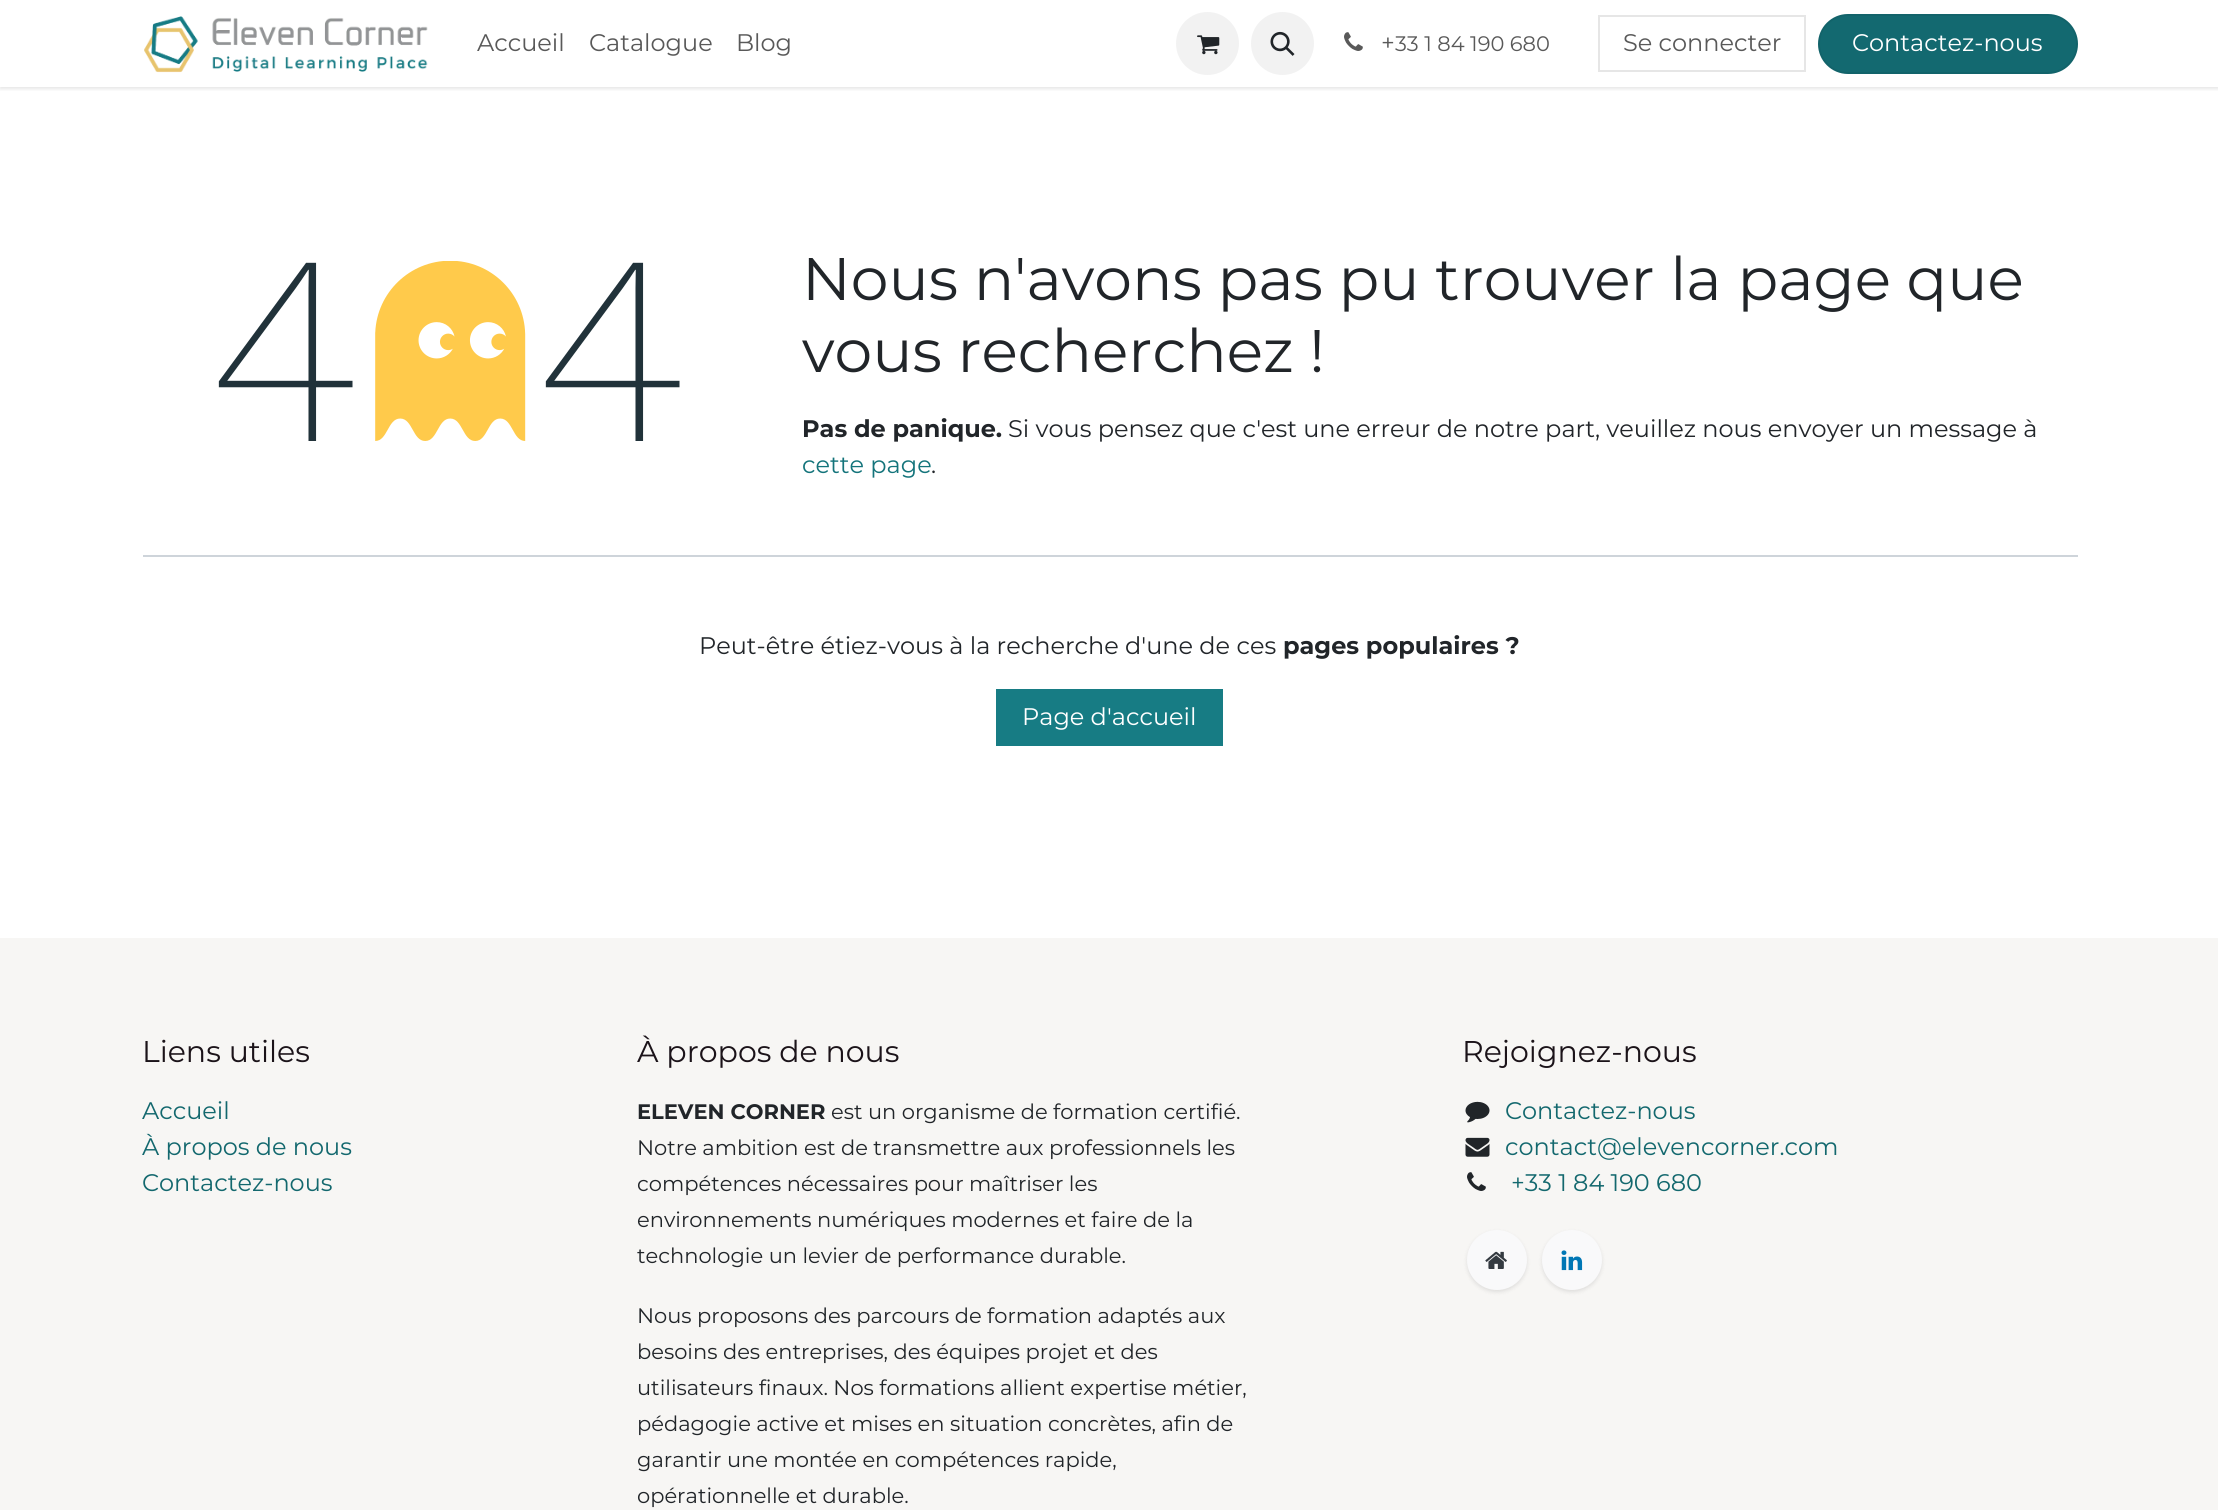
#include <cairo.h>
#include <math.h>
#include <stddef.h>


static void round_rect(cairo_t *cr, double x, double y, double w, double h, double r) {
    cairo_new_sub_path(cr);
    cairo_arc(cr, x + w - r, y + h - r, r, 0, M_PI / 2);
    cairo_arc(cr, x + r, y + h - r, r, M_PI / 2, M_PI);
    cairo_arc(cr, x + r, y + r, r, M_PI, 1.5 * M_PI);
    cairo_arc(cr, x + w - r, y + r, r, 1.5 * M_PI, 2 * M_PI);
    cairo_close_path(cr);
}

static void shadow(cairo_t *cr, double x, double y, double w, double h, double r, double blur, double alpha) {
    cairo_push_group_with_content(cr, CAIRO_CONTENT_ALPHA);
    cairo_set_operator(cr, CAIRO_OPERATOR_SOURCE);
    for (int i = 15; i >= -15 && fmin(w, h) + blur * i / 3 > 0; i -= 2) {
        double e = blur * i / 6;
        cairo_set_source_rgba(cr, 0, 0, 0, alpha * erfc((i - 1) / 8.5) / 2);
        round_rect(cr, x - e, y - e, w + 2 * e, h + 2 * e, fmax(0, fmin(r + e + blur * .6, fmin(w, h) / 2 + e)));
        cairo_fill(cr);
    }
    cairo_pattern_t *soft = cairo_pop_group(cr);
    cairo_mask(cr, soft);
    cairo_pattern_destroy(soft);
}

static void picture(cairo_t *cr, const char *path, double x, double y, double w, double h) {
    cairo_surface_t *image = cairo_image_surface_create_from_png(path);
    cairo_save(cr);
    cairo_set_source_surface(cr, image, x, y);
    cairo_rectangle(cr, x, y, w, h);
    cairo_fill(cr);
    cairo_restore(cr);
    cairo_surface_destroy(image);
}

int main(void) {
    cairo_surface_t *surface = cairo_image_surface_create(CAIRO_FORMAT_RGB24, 2218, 1510);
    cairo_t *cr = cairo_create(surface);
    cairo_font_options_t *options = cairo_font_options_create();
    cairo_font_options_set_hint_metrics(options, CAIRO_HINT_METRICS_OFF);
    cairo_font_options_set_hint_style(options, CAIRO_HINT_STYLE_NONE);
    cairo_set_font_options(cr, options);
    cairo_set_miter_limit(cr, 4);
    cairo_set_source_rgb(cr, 1, 1, 1);
    cairo_paint(cr);
    cairo_save(cr);
    cairo_rectangle(cr, 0, 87, 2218, 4);
    cairo_clip(cr);
    cairo_set_source_rgb(cr, 0, 0, 0);
    shadow(cr, 0, 2, 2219, 87, 0, 2, 0.1);
    cairo_restore(cr);
    picture(cr, "img1.png", 144, 16, 284, 57);
    cairo_select_font_face(cr, "Montserrat", CAIRO_FONT_SLANT_NORMAL, CAIRO_FONT_WEIGHT_NORMAL);
    cairo_set_font_size(cr, 24);
    cairo_set_source_rgb(cr, 0.349, 0.349, 0.349);
    cairo_move_to(cr, 477, 51);
    cairo_show_text(cr, "Accueil");
    cairo_move_to(cr, 589, 51);
    cairo_show_text(cr, "Catalogue");
    cairo_move_to(cr, 736, 51);
    cairo_show_text(cr, "Blog");
    cairo_set_source_rgb(cr, 0.949, 0.949, 0.949);
    cairo_new_path(cr);
    cairo_arc(cr, 1207.5, 43.5, 31.5, 0, 2 * M_PI);
    cairo_fill(cr);
    picture(cr, "img2.png", 1197, 35, 23, 20);
    cairo_arc(cr, 1282.5, 43.5, 31.5, 0, 2 * M_PI);
    cairo_fill(cr);
    picture(cr, "img3.png", 1270, 31, 25, 25);
    picture(cr, "img4.png", 1344, 32, 19, 19);
    cairo_set_source_rgb(cr, 0.349, 0.349, 0.349);
    cairo_move_to(cr, 1381, 51);
    cairo_show_text(cr, "+");
    cairo_set_font_size(cr, 21);
    cairo_move_to(cr, 1395, 51);
    cairo_show_text(cr, "33 1 84 190 680");
    cairo_rectangle(cr, 1599, 16, 206, 55);
    cairo_set_source_rgb(cr, 0.902, 0.902, 0.902);
    cairo_stroke(cr);
    cairo_set_font_size(cr, 24);
    cairo_set_source_rgb(cr, 0.349, 0.349, 0.349);
    cairo_move_to(cr, 1623, 51);
    cairo_show_text(cr, "Se connecter");
    cairo_set_source_rgb(cr, 0.078, 0.412, 0.439);
    round_rect(cr, 1819, 15, 258, 58, 29);
    cairo_fill_preserve(cr);
    cairo_set_source_rgb(cr, 0.071, 0.388, 0.416);
    cairo_stroke(cr);
    cairo_set_source_rgb(cr, 1, 1, 1);
    cairo_move_to(cr, 1852, 51);
    cairo_show_text(cr, "Contactez-nous");
    picture(cr, "img5.png", 218, 261, 462, 180);
    cairo_set_font_size(cr, 60);
    cairo_set_source_rgb(cr, 0.129, 0.145, 0.161);
    cairo_move_to(cr, 802, 300);
    cairo_show_text(cr, "Nous n'avons pas pu trouver la page que");
    cairo_move_to(cr, 802, 372);
    cairo_show_text(cr, "vous recherchez !");
    cairo_select_font_face(cr, "Montserrat", CAIRO_FONT_SLANT_NORMAL, CAIRO_FONT_WEIGHT_BOLD);
    cairo_set_font_size(cr, 24);
    cairo_move_to(cr, 802, 437);
    cairo_show_text(cr, "Pas de panique.");
    cairo_select_font_face(cr, "Montserrat", CAIRO_FONT_SLANT_NORMAL, CAIRO_FONT_WEIGHT_NORMAL);
    cairo_move_to(cr, 1008, 437);
    cairo_show_text(cr, "Si vous pensez que c'est une erreur de notre part, veuillez nous envoyer un message à");
    cairo_set_source_rgb(cr, 0.082, 0.455, 0.482);
    cairo_move_to(cr, 802, 473);
    cairo_show_text(cr, "cette page");
    cairo_set_source_rgb(cr, 0.129, 0.145, 0.161);
    cairo_move_to(cr, 931, 473);
    cairo_show_text(cr, ".");
    cairo_set_source_rgb(cr, 0.808, 0.831, 0.855);
    cairo_rectangle(cr, 143, 555, 1935, 2);
    cairo_fill(cr);
    cairo_set_source_rgb(cr, 0.129, 0.145, 0.161);
    cairo_move_to(cr, 699, 654);
    cairo_show_text(cr, "Peut-être étiez-vous à la recherche d'une de ces");
    cairo_select_font_face(cr, "Montserrat", CAIRO_FONT_SLANT_NORMAL, CAIRO_FONT_WEIGHT_BOLD);
    cairo_move_to(cr, 1283, 654);
    cairo_show_text(cr, "pages populaires ?");
    cairo_set_source_rgb(cr, 0.09, 0.486, 0.518);
    cairo_rectangle(cr, 996, 689, 227, 57);
    cairo_fill(cr);
    cairo_select_font_face(cr, "Montserrat", CAIRO_FONT_SLANT_NORMAL, CAIRO_FONT_WEIGHT_NORMAL);
    cairo_set_source_rgb(cr, 1, 1, 1);
    cairo_move_to(cr, 1022, 725);
    cairo_show_text(cr, "Page d'accueil");
    cairo_set_source_rgb(cr, 0.965, 0.961, 0.957);
    cairo_rectangle(cr, 0, 938, 2218, 572);
    cairo_fill(cr);
    cairo_set_font_size(cr, 30);
    cairo_set_source_rgb(cr, 0.106, 0.075, 0.098);
    cairo_move_to(cr, 142, 1062);
    cairo_show_text(cr, "Liens utiles");
    cairo_set_font_size(cr, 24);
    cairo_set_source_rgb(cr, 0.075, 0.408, 0.431);
    cairo_move_to(cr, 142, 1119);
    cairo_show_text(cr, "Accueil");
    cairo_move_to(cr, 142, 1155);
    cairo_show_text(cr, "À propos de nous");
    cairo_move_to(cr, 142, 1191);
    cairo_show_text(cr, "Contactez-nous");
    cairo_set_font_size(cr, 30);
    cairo_set_source_rgb(cr, 0.106, 0.075, 0.098);
    cairo_move_to(cr, 637, 1062);
    cairo_show_text(cr, "À propos de nous");
    cairo_select_font_face(cr, "Montserrat", CAIRO_FONT_SLANT_NORMAL, CAIRO_FONT_WEIGHT_BOLD);
    cairo_set_font_size(cr, 21);
    cairo_set_source_rgb(cr, 0.129, 0.145, 0.161);
    cairo_move_to(cr, 637, 1119);
    cairo_show_text(cr, "ELEVEN CORNER");
    cairo_select_font_face(cr, "Montserrat", CAIRO_FONT_SLANT_NORMAL, CAIRO_FONT_WEIGHT_NORMAL);
    cairo_move_to(cr, 831, 1119);
    cairo_show_text(cr, "est un organisme de formation certifié.");
    cairo_move_to(cr, 637, 1155);
    cairo_show_text(cr, "Notre ambition est de transmettre aux professionnels les");
    cairo_move_to(cr, 637, 1191);
    cairo_show_text(cr, "compétences nécessaires pour maîtriser les");
    cairo_move_to(cr, 637, 1227);
    cairo_show_text(cr, "environnements numériques modernes et faire de la");
    cairo_move_to(cr, 637, 1263);
    cairo_show_text(cr, "technologie un levier de performance durable.");
    cairo_move_to(cr, 637, 1323);
    cairo_show_text(cr, "Nous proposons des parcours de formation adaptés aux");
    cairo_move_to(cr, 637, 1359);
    cairo_show_text(cr, "besoins des entreprises, des équipes projet et des");
    cairo_move_to(cr, 637, 1395);
    cairo_show_text(cr, "utilisateurs finaux. Nos formations allient expertise métier,");
    cairo_move_to(cr, 637, 1431);
    cairo_show_text(cr, "pédagogie active et mises en situation concrètes, afin de");
    cairo_move_to(cr, 637, 1467);
    cairo_show_text(cr, "garantir une montée en compétences rapide,");
    cairo_move_to(cr, 637, 1503);
    cairo_show_text(cr, "opérationnelle et durable.");
    cairo_set_font_size(cr, 30);
    cairo_set_source_rgb(cr, 0.106, 0.075, 0.098);
    cairo_move_to(cr, 1462, 1062);
    cairo_show_text(cr, "Rejoignez-nous");
    picture(cr, "img6.png", 1465, 1101, 25, 22);
    cairo_set_font_size(cr, 24);
    cairo_set_source_rgb(cr, 0.075, 0.408, 0.431);
    cairo_move_to(cr, 1505, 1119);
    cairo_show_text(cr, "Contactez-nous");
    picture(cr, "img7.png", 1465, 1137, 25, 20);
    cairo_move_to(cr, 1505, 1155);
    cairo_show_text(cr, "contact@elevencorner.com");
    picture(cr, "img8.png", 1467, 1172, 19, 19);
    cairo_move_to(cr, 1511, 1191);
    cairo_show_text(cr, "+33 1 84 190 680");
    cairo_set_source_rgb(cr, 0, 0, 0);
    shadow(cr, 1467, 1232, 60, 60, 30, 2, 0.1);
    cairo_set_source_rgb(cr, 0.973, 0.976, 0.98);
    cairo_arc(cr, 1497, 1260, 30, 0, 2 * M_PI);
    cairo_fill(cr);
    picture(cr, "img9.png", 1485, 1251, 22, 18);
    cairo_set_source_rgb(cr, 0, 0, 0);
    shadow(cr, 1542, 1232, 60, 60, 30, 2, 0.1);
    cairo_set_source_rgb(cr, 0.973, 0.976, 0.98);
    cairo_arc(cr, 1572, 1260, 30, 0, 2 * M_PI);
    cairo_fill(cr);
    picture(cr, "img10.png", 1561, 1250, 22, 21);
    cairo_surface_write_to_png(surface, "page.png");
    cairo_font_options_destroy(options);
    cairo_destroy(cr);
    cairo_surface_destroy(surface);
    return 0;
}
